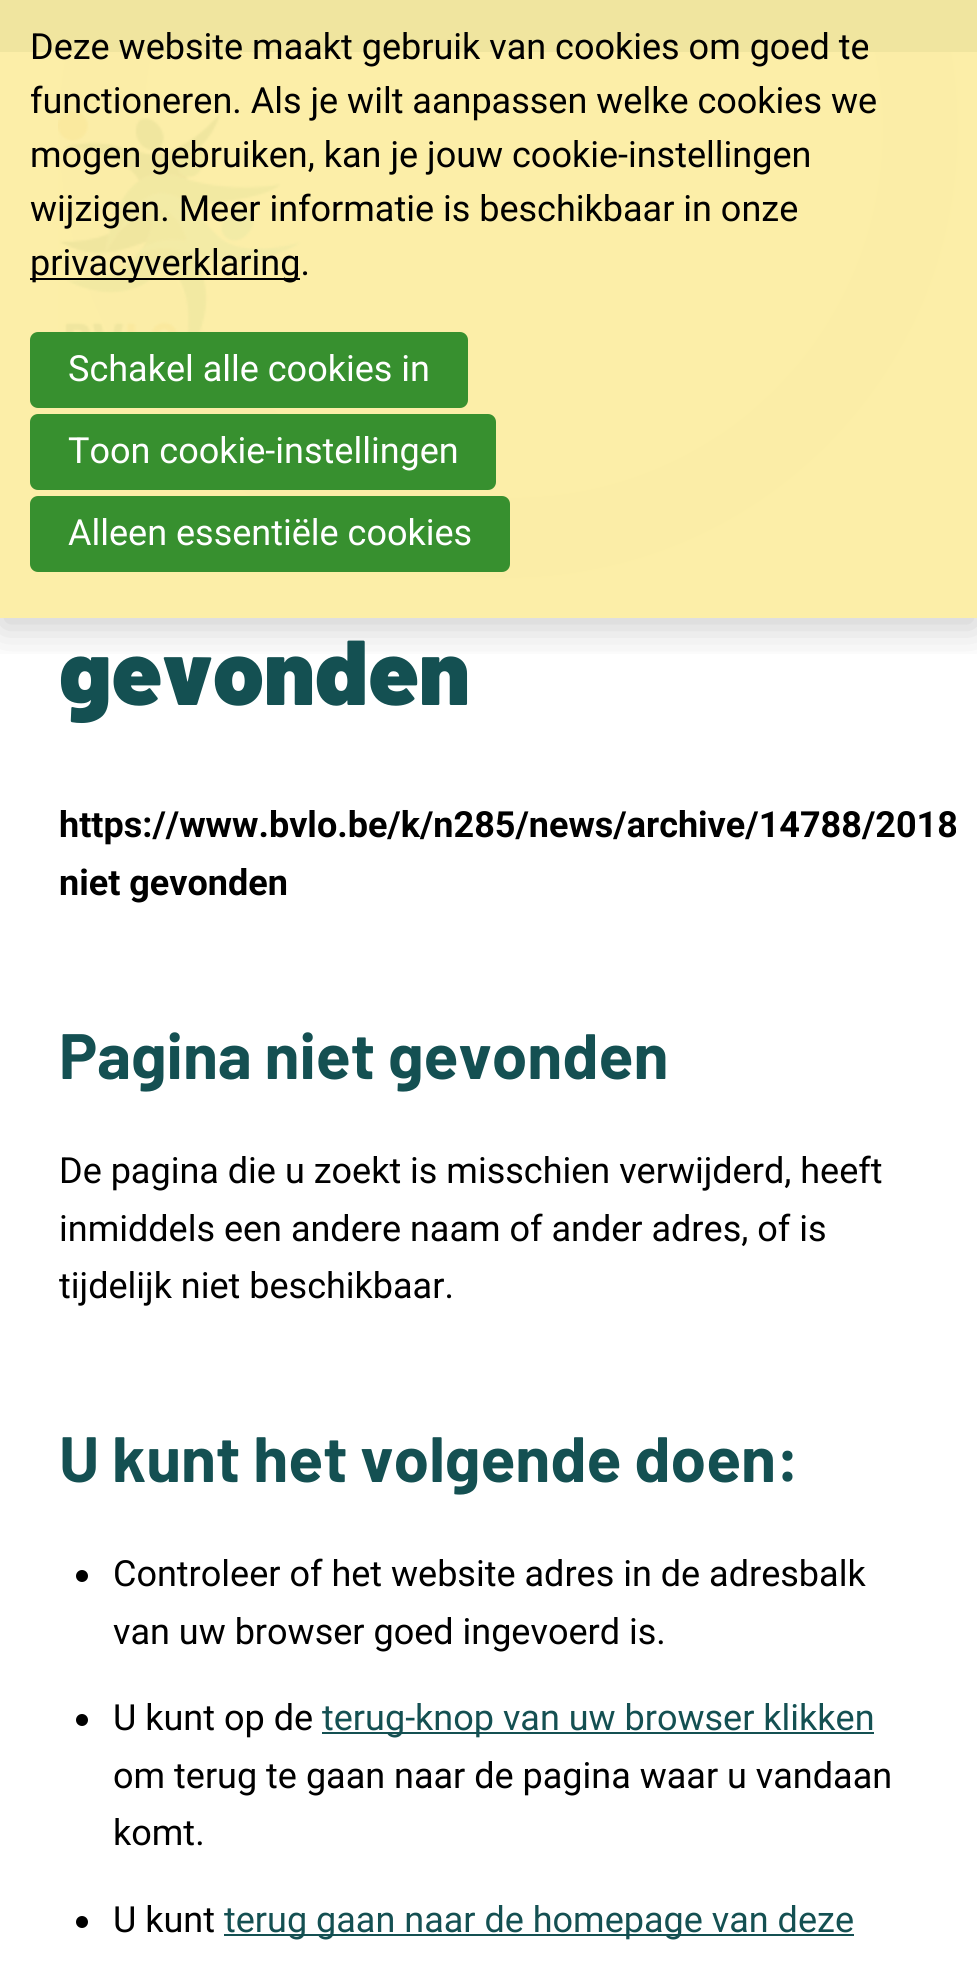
#include <cairo.h>
#include <math.h>
#include <stddef.h>


static void round_rect(cairo_t *cr, double x, double y, double w, double h, double r) {
    cairo_new_sub_path(cr);
    cairo_arc(cr, x + w - r, y + h - r, r, 0, M_PI / 2);
    cairo_arc(cr, x + r, y + h - r, r, M_PI / 2, M_PI);
    cairo_arc(cr, x + r, y + r, r, M_PI, 1.5 * M_PI);
    cairo_arc(cr, x + w - r, y + r, r, 1.5 * M_PI, 2 * M_PI);
    cairo_close_path(cr);
}

static void shadow(cairo_t *cr, double x, double y, double w, double h, double r, double blur, double alpha) {
    cairo_push_group_with_content(cr, CAIRO_CONTENT_ALPHA);
    cairo_set_operator(cr, CAIRO_OPERATOR_SOURCE);
    for (int i = 15; i >= -15 && fmin(w, h) + blur * i / 3 > 0; i -= 2) {
        double e = blur * i / 6;
        cairo_set_source_rgba(cr, 0, 0, 0, alpha * erfc((i - 1) / 8.5) / 2);
        round_rect(cr, x - e, y - e, w + 2 * e, h + 2 * e, fmax(0, fmin(r + e + blur * .6, fmin(w, h) / 2 + e)));
        cairo_fill(cr);
    }
    cairo_pattern_t *soft = cairo_pop_group(cr);
    cairo_mask(cr, soft);
    cairo_pattern_destroy(soft);
}

static void picture(cairo_t *cr, const char *path, double x, double y, double w, double h) {
    cairo_surface_t *image = cairo_image_surface_create_from_png(path);
    cairo_save(cr);
    cairo_set_source_surface(cr, image, x, y);
    cairo_rectangle(cr, x, y, w, h);
    cairo_fill(cr);
    cairo_restore(cr);
    cairo_surface_destroy(image);
}

int main(void) {
    cairo_surface_t *surface = cairo_image_surface_create(CAIRO_FORMAT_RGB24, 977, 1974);
    cairo_t *cr = cairo_create(surface);
    cairo_font_options_t *options = cairo_font_options_create();
    cairo_font_options_set_hint_metrics(options, CAIRO_HINT_METRICS_OFF);
    cairo_font_options_set_hint_style(options, CAIRO_HINT_STYLE_NONE);
    cairo_set_font_options(cr, options);
    cairo_set_miter_limit(cr, 4);
    cairo_set_source_rgb(cr, 1, 1, 1);
    cairo_paint(cr);
    cairo_set_source_rgb(cr, 0.988, 0.933, 0.659);
    cairo_rectangle(cr, 0, 52, 977, 566);
    cairo_fill(cr);
    picture(cr, "img1.png", 58, 52, 901, 527);
    cairo_set_source_rgb(cr, 0.941, 0.898, 0.624);
    cairo_rectangle(cr, 0, 0, 977, 52);
    cairo_fill(cr);
    picture(cr, "img2.png", 58, 109, 243, 223);
    cairo_save(cr);
    cairo_rectangle(cr, 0, 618, 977, 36);
    cairo_clip(cr);
    cairo_set_source_rgb(cr, 0, 0, 0);
    shadow(cr, 0, -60, 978, 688, 0, 20, 0.2);
    cairo_restore(cr);
    cairo_select_font_face(cr, "Roboto", CAIRO_FONT_SLANT_NORMAL, CAIRO_FONT_WEIGHT_NORMAL);
    cairo_set_font_size(cr, 36);
    cairo_set_source_rgb(cr, 0, 0, 0);
    cairo_move_to(cr, 30, 59);
    cairo_show_text(cr, "Deze website maakt gebruik van cookies om goed te");
    cairo_move_to(cr, 30, 113);
    cairo_show_text(cr, "functioneren. Als je wilt aanpassen welke cookies we");
    cairo_move_to(cr, 30, 167);
    cairo_show_text(cr, "mogen gebruiken, kan je jouw cookie-instellingen");
    cairo_move_to(cr, 30, 221);
    cairo_show_text(cr, "wijzigen. Meer informatie is beschikbaar in onze");
    cairo_rectangle(cr, 30, 278, 270, 2);
    cairo_fill(cr);
    cairo_move_to(cr, 30, 275);
    cairo_show_text(cr, "privacyverklaring.");
    cairo_set_source_rgb(cr, 0.216, 0.565, 0.184);
    round_rect(cr, 31, 333, 436, 74, 7);
    cairo_fill_preserve(cr);
    cairo_stroke(cr);
    cairo_set_source_rgb(cr, 1, 1, 1);
    cairo_move_to(cr, 68, 381);
    cairo_show_text(cr, "Schakel alle cookies in");
    cairo_set_source_rgb(cr, 0.216, 0.565, 0.184);
    round_rect(cr, 31, 415, 464, 74, 7);
    cairo_fill_preserve(cr);
    cairo_stroke(cr);
    cairo_set_source_rgb(cr, 1, 1, 1);
    cairo_move_to(cr, 68, 463);
    cairo_show_text(cr, "Toon cookie-instellingen");
    cairo_set_source_rgb(cr, 0.216, 0.565, 0.184);
    round_rect(cr, 31, 497, 478, 74, 7);
    cairo_fill_preserve(cr);
    cairo_stroke(cr);
    cairo_set_source_rgb(cr, 1, 1, 1);
    cairo_move_to(cr, 68, 545);
    cairo_show_text(cr, "Alleen essentiële cookies");
    cairo_select_font_face(cr, "Barlow Black", CAIRO_FONT_SLANT_NORMAL, CAIRO_FONT_WEIGHT_NORMAL);
    cairo_set_font_size(cr, 92);
    cairo_set_source_rgb(cr, 0.082, 0.314, 0.322);
    cairo_move_to(cr, 59, 705);
    cairo_show_text(cr, "gevonden");
    cairo_select_font_face(cr, "Roboto", CAIRO_FONT_SLANT_NORMAL, CAIRO_FONT_WEIGHT_BOLD);
    cairo_set_font_size(cr, 36);
    cairo_set_source_rgb(cr, 0, 0, 0);
    cairo_move_to(cr, 59, 837);
    cairo_show_text(cr, "https://www.bvlo.be/k/n285/news/archive/14788/2018");
    cairo_move_to(cr, 59, 895);
    cairo_show_text(cr, "niet gevonden");
    cairo_select_font_face(cr, "Barlow", CAIRO_FONT_SLANT_NORMAL, CAIRO_FONT_WEIGHT_BOLD);
    cairo_set_font_size(cr, 64);
    cairo_set_source_rgb(cr, 0.082, 0.314, 0.322);
    cairo_move_to(cr, 59, 1079);
    cairo_show_text(cr, "Pagina niet gevonden");
    cairo_select_font_face(cr, "Roboto", CAIRO_FONT_SLANT_NORMAL, CAIRO_FONT_WEIGHT_NORMAL);
    cairo_set_font_size(cr, 36);
    cairo_set_source_rgb(cr, 0, 0, 0);
    cairo_move_to(cr, 59, 1183);
    cairo_show_text(cr, "De pagina die u zoekt is misschien verwijderd, heeft");
    cairo_move_to(cr, 59, 1241);
    cairo_show_text(cr, "inmiddels een andere naam of ander adres, of is");
    cairo_move_to(cr, 59, 1298);
    cairo_show_text(cr, "tijdelijk niet beschikbaar.");
    cairo_select_font_face(cr, "Barlow", CAIRO_FONT_SLANT_NORMAL, CAIRO_FONT_WEIGHT_BOLD);
    cairo_set_font_size(cr, 64);
    cairo_set_source_rgb(cr, 0.082, 0.314, 0.322);
    cairo_move_to(cr, 59, 1482);
    cairo_show_text(cr, "U kunt het volgende doen:");
    cairo_set_source_rgb(cr, 0, 0, 0);
    cairo_new_path(cr);
    cairo_arc(cr, 82, 1576, 6, 0, 2 * M_PI);
    cairo_fill(cr);
    cairo_select_font_face(cr, "Roboto", CAIRO_FONT_SLANT_NORMAL, CAIRO_FONT_WEIGHT_NORMAL);
    cairo_set_font_size(cr, 36);
    cairo_move_to(cr, 113, 1586);
    cairo_show_text(cr, "Controleer of het website adres in de adresbalk");
    cairo_move_to(cr, 113, 1644);
    cairo_show_text(cr, "van uw browser goed ingevoerd is.");
    cairo_new_path(cr);
    cairo_arc(cr, 82, 1720, 6, 0, 2 * M_PI);
    cairo_fill(cr);
    cairo_move_to(cr, 113, 1730);
    cairo_show_text(cr, "U kunt op de");
    cairo_set_source_rgb(cr, 0.082, 0.314, 0.322);
    cairo_rectangle(cr, 322, 1732, 552, 2);
    cairo_fill(cr);
    cairo_move_to(cr, 322, 1730);
    cairo_show_text(cr, "terug-knop van uw browser klikken");
    cairo_set_source_rgb(cr, 0, 0, 0);
    cairo_move_to(cr, 113, 1788);
    cairo_show_text(cr, "om terug te gaan naar de pagina waar u vandaan");
    cairo_move_to(cr, 113, 1845);
    cairo_show_text(cr, "komt.");
    cairo_new_path(cr);
    cairo_arc(cr, 82, 1922, 6, 0, 2 * M_PI);
    cairo_fill(cr);
    cairo_move_to(cr, 113, 1932);
    cairo_show_text(cr, "U kunt");
    cairo_set_source_rgb(cr, 0.082, 0.314, 0.322);
    cairo_rectangle(cr, 224, 1934, 630, 2);
    cairo_fill(cr);
    cairo_move_to(cr, 224, 1932);
    cairo_show_text(cr, "terug gaan naar de homepage van deze");
    cairo_surface_write_to_png(surface, "page.png");
    cairo_font_options_destroy(options);
    cairo_destroy(cr);
    cairo_surface_destroy(surface);
    return 0;
}
